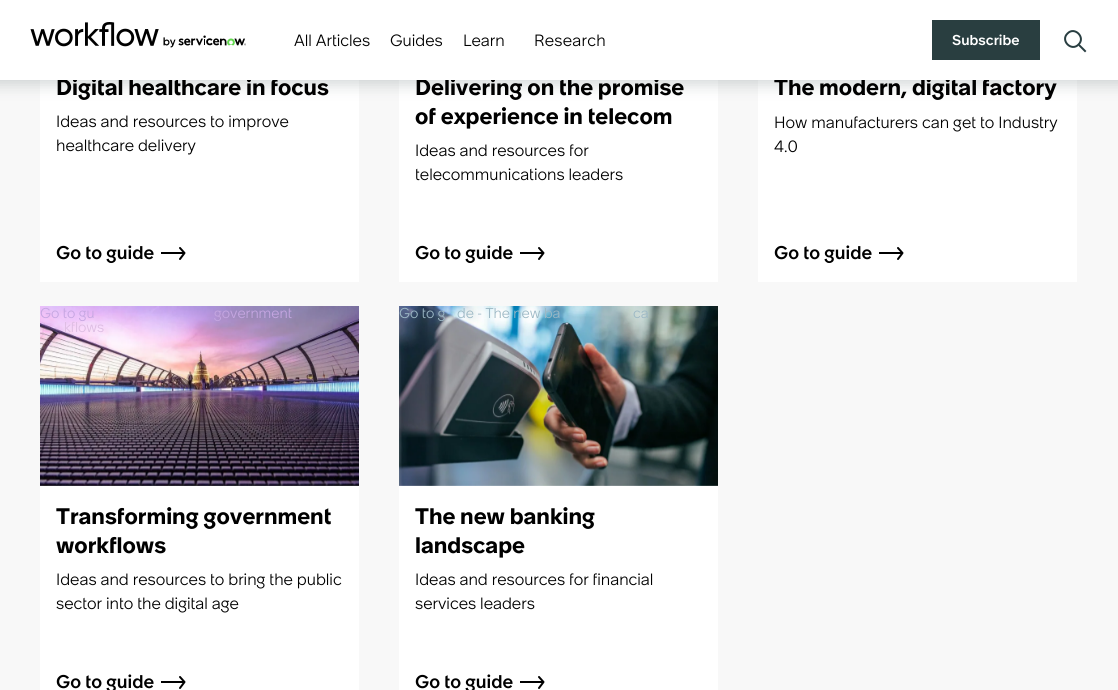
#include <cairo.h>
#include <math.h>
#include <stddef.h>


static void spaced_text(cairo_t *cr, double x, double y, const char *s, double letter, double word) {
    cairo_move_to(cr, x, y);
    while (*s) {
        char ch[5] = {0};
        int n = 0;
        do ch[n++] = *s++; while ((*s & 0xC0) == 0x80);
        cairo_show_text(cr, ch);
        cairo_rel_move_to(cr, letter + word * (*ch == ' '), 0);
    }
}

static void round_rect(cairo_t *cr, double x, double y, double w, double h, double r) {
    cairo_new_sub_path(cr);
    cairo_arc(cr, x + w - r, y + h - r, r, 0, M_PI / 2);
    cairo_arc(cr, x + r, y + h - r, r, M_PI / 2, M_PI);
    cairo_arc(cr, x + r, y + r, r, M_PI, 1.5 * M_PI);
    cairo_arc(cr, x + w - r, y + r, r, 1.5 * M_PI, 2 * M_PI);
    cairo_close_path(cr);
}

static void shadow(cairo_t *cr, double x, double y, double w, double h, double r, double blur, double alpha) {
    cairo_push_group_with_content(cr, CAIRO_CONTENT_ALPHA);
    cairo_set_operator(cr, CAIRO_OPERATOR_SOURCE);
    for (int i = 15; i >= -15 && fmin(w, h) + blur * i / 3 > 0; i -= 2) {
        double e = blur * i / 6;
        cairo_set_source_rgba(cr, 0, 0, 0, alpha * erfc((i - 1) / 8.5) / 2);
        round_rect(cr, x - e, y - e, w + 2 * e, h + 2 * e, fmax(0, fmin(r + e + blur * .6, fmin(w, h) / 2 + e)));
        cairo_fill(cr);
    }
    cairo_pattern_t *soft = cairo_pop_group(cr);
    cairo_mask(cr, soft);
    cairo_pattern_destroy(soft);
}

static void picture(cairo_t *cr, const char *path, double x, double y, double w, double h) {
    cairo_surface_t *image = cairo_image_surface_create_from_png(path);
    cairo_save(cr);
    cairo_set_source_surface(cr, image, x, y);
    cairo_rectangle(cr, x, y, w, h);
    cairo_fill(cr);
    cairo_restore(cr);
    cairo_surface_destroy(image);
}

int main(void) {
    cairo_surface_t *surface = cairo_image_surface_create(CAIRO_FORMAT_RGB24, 1118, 690);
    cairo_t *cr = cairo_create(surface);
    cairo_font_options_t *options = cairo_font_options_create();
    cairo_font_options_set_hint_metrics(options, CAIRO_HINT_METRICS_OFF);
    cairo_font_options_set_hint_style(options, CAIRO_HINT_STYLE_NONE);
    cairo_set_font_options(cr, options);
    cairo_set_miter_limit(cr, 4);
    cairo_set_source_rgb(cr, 0.969, 0.969, 0.969);
    cairo_paint(cr);
    cairo_set_source_rgb(cr, 1, 1, 1);
    cairo_rectangle(cr, 40, 80, 319, 202);
    cairo_fill(cr);
    cairo_rectangle(cr, 399, 80, 319, 202);
    cairo_fill(cr);
    cairo_rectangle(cr, 758, 80, 319, 202);
    cairo_fill(cr);
    cairo_set_source_rgb(cr, 0.161, 0.243, 0.251);
    shadow(cr, -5, -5, 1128, 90, 0, 7.5, 0.2);
    cairo_select_font_face(cr, "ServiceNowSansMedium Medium", CAIRO_FONT_SLANT_NORMAL, CAIRO_FONT_WEIGHT_NORMAL);
    cairo_set_font_size(cr, 22);
    cairo_set_source_rgb(cr, 0, 0, 0);
    cairo_move_to(cr, 56, 95);
    cairo_show_text(cr, "Digital healthcare in focus");
    cairo_move_to(cr, 415, 95);
    cairo_show_text(cr, "Delivering on the promise");
    cairo_move_to(cr, 774, 95);
    cairo_show_text(cr, "The modern, digital factory");
    cairo_set_source_rgb(cr, 1, 1, 1);
    cairo_rectangle(cr, 0, 0, 1118, 80);
    cairo_fill(cr);
    picture(cr, "img1.png", 30, 22, 216, 26);
    cairo_select_font_face(cr, "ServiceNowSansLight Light", CAIRO_FONT_SLANT_NORMAL, CAIRO_FONT_WEIGHT_NORMAL);
    cairo_set_font_size(cr, 16);
    cairo_set_source_rgb(cr, 0, 0, 0);
    cairo_move_to(cr, 294, 46);
    cairo_show_text(cr, "All Articles");
    cairo_move_to(cr, 390, 46);
    cairo_show_text(cr, "Guides");
    cairo_move_to(cr, 463, 46);
    cairo_show_text(cr, "Learn");
    spaced_text(cr, 534, 46, "Research", 0.25, 0);
    cairo_set_source_rgb(cr, 0.161, 0.243, 0.251);
    cairo_rectangle(cr, 932, 20, 108, 40);
    cairo_fill(cr);
    cairo_select_font_face(cr, "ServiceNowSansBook", CAIRO_FONT_SLANT_NORMAL, CAIRO_FONT_WEIGHT_NORMAL);
    cairo_set_font_size(cr, 14);
    cairo_set_source_rgb(cr, 1, 1, 1);
    cairo_move_to(cr, 952, 45);
    cairo_show_text(cr, "Subscribe");
    cairo_new_path(cr);
    cairo_move_to(cr, 1067.5, 33.5);
    cairo_curve_to(cr, 1074.5, 26, 1086, 37.5, 1078.5, 44.5);
    cairo_curve_to(cr, 1071.5, 52, 1060, 40.5, 1067.5, 33.5);
    cairo_close_path(cr);
    cairo_set_source_rgb(cr, 0.161, 0.243, 0.255);
    cairo_stroke(cr);
    cairo_new_path(cr);
    cairo_move_to(cr, 1079.5, 45.5);
    cairo_line_to(cr, 1085, 51);
    cairo_set_line_cap(cr, CAIRO_LINE_CAP_SQUARE);
    cairo_stroke(cr);
    cairo_select_font_face(cr, "ServiceNowSansLight Light", CAIRO_FONT_SLANT_NORMAL, CAIRO_FONT_WEIGHT_NORMAL);
    cairo_set_font_size(cr, 16);
    cairo_set_source_rgb(cr, 0, 0, 0);
    cairo_move_to(cr, 56, 127);
    cairo_show_text(cr, "Ideas and resources to improve");
    cairo_move_to(cr, 56, 151);
    cairo_show_text(cr, "healthcare delivery");
    cairo_select_font_face(cr, "ServiceNowSansBook", CAIRO_FONT_SLANT_NORMAL, CAIRO_FONT_WEIGHT_NORMAL);
    cairo_set_font_size(cr, 18);
    cairo_move_to(cr, 56, 259);
    cairo_show_text(cr, "Go to guide");
    cairo_rectangle(cr, 161, 252, 23, 2);
    cairo_fill(cr);
    cairo_new_path(cr);
    cairo_move_to(cr, 180, 248);
    cairo_line_to(cr, 184.5, 253);
    cairo_line_to(cr, 180, 259);
    cairo_set_line_cap(cr, CAIRO_LINE_CAP_ROUND);
    cairo_set_line_join(cr, CAIRO_LINE_JOIN_ROUND);
    cairo_stroke(cr);
    cairo_select_font_face(cr, "ServiceNowSansMedium Medium", CAIRO_FONT_SLANT_NORMAL, CAIRO_FONT_WEIGHT_NORMAL);
    cairo_set_font_size(cr, 22);
    cairo_move_to(cr, 415, 124);
    cairo_show_text(cr, "of experience in telecom");
    cairo_select_font_face(cr, "ServiceNowSansLight Light", CAIRO_FONT_SLANT_NORMAL, CAIRO_FONT_WEIGHT_NORMAL);
    cairo_set_font_size(cr, 16);
    cairo_move_to(cr, 415, 156);
    cairo_show_text(cr, "Ideas and resources for");
    cairo_move_to(cr, 415, 180);
    cairo_show_text(cr, "telecommunications leaders");
    cairo_select_font_face(cr, "ServiceNowSansBook", CAIRO_FONT_SLANT_NORMAL, CAIRO_FONT_WEIGHT_NORMAL);
    cairo_set_font_size(cr, 18);
    cairo_move_to(cr, 415, 259);
    cairo_show_text(cr, "Go to guide");
    cairo_rectangle(cr, 520, 252, 23, 2);
    cairo_fill(cr);
    cairo_new_path(cr);
    cairo_move_to(cr, 539, 248);
    cairo_line_to(cr, 543.5, 253);
    cairo_line_to(cr, 539, 259);
    cairo_stroke(cr);
    cairo_select_font_face(cr, "ServiceNowSansLight Light", CAIRO_FONT_SLANT_NORMAL, CAIRO_FONT_WEIGHT_NORMAL);
    cairo_set_font_size(cr, 16);
    cairo_move_to(cr, 774, 128);
    cairo_show_text(cr, "How manufacturers can get to Industry");
    cairo_move_to(cr, 774, 152);
    cairo_show_text(cr, "4.0");
    cairo_select_font_face(cr, "ServiceNowSansBook", CAIRO_FONT_SLANT_NORMAL, CAIRO_FONT_WEIGHT_NORMAL);
    cairo_set_font_size(cr, 18);
    cairo_move_to(cr, 774, 259);
    cairo_show_text(cr, "Go to guide");
    cairo_rectangle(cr, 879, 252, 23, 2);
    cairo_fill(cr);
    cairo_new_path(cr);
    cairo_move_to(cr, 898, 248);
    cairo_line_to(cr, 902.5, 253);
    cairo_line_to(cr, 898, 259);
    cairo_stroke(cr);
    cairo_set_source_rgb(cr, 1, 1, 1);
    cairo_rectangle(cr, 40, 485, 319, 205);
    cairo_fill(cr);
    picture(cr, "img2.png", 40, 306, 319, 180);
    cairo_select_font_face(cr, "ServiceNowSansLight Light", CAIRO_FONT_SLANT_NORMAL, CAIRO_FONT_WEIGHT_NORMAL);
    cairo_set_font_size(cr, 14);
    cairo_set_source_rgb(cr, 0.773, 0.651, 0.882);
    cairo_move_to(cr, 40, 318);
    cairo_show_text(cr, "Go to gu");
    cairo_move_to(cr, 214, 318);
    cairo_show_text(cr, "government");
    cairo_set_source_rgb(cr, 0.867, 0.741, 0.886);
    cairo_move_to(cr, 64, 332);
    cairo_show_text(cr, "kflows");
    cairo_select_font_face(cr, "ServiceNowSansMedium Medium", CAIRO_FONT_SLANT_NORMAL, CAIRO_FONT_WEIGHT_NORMAL);
    cairo_set_font_size(cr, 22);
    cairo_set_source_rgb(cr, 0, 0, 0);
    cairo_move_to(cr, 56, 524);
    cairo_show_text(cr, "Transforming government");
    cairo_move_to(cr, 56, 553);
    cairo_show_text(cr, "workflows");
    cairo_select_font_face(cr, "ServiceNowSansLight Light", CAIRO_FONT_SLANT_NORMAL, CAIRO_FONT_WEIGHT_NORMAL);
    cairo_set_font_size(cr, 16);
    cairo_move_to(cr, 56, 585);
    cairo_show_text(cr, "Ideas and resources to bring the public");
    cairo_move_to(cr, 56, 609);
    cairo_show_text(cr, "sector into the digital age");
    cairo_select_font_face(cr, "ServiceNowSansBook", CAIRO_FONT_SLANT_NORMAL, CAIRO_FONT_WEIGHT_NORMAL);
    cairo_set_font_size(cr, 18);
    cairo_move_to(cr, 56, 688);
    cairo_show_text(cr, "Go to guide");
    cairo_rectangle(cr, 161, 681, 23, 2);
    cairo_fill(cr);
    cairo_new_path(cr);
    cairo_move_to(cr, 180, 677);
    cairo_line_to(cr, 184.5, 682);
    cairo_line_to(cr, 180, 688);
    cairo_stroke(cr);
    cairo_set_source_rgb(cr, 1, 1, 1);
    cairo_rectangle(cr, 399, 485, 319, 205);
    cairo_fill(cr);
    picture(cr, "img3.png", 399, 306, 319, 180);
    cairo_select_font_face(cr, "ServiceNowSansLight Light", CAIRO_FONT_SLANT_NORMAL, CAIRO_FONT_WEIGHT_NORMAL);
    cairo_set_font_size(cr, 14);
    cairo_set_source_rgb(cr, 0.612, 0.722, 0.773);
    cairo_move_to(cr, 399, 318);
    cairo_show_text(cr, "Go to g");
    cairo_move_to(cr, 457, 318);
    cairo_show_text(cr, "de - The new ba");
    cairo_move_to(cr, 633, 318);
    cairo_show_text(cr, "ca");
    cairo_select_font_face(cr, "ServiceNowSansMedium Medium", CAIRO_FONT_SLANT_NORMAL, CAIRO_FONT_WEIGHT_NORMAL);
    cairo_set_font_size(cr, 22);
    cairo_set_source_rgb(cr, 0, 0, 0);
    cairo_move_to(cr, 415, 524);
    cairo_show_text(cr, "The new banking");
    cairo_move_to(cr, 415, 553);
    cairo_show_text(cr, "landscape");
    cairo_select_font_face(cr, "ServiceNowSansLight Light", CAIRO_FONT_SLANT_NORMAL, CAIRO_FONT_WEIGHT_NORMAL);
    cairo_set_font_size(cr, 16);
    cairo_move_to(cr, 415, 585);
    cairo_show_text(cr, "Ideas and resources for financial");
    cairo_move_to(cr, 415, 609);
    cairo_show_text(cr, "services leaders");
    cairo_select_font_face(cr, "ServiceNowSansBook", CAIRO_FONT_SLANT_NORMAL, CAIRO_FONT_WEIGHT_NORMAL);
    cairo_set_font_size(cr, 18);
    cairo_move_to(cr, 415, 688);
    cairo_show_text(cr, "Go to guide");
    cairo_rectangle(cr, 520, 681, 23, 2);
    cairo_fill(cr);
    cairo_new_path(cr);
    cairo_move_to(cr, 539, 677);
    cairo_line_to(cr, 543.5, 682);
    cairo_line_to(cr, 539, 688);
    cairo_stroke(cr);
    cairo_surface_write_to_png(surface, "page.png");
    cairo_font_options_destroy(options);
    cairo_destroy(cr);
    cairo_surface_destroy(surface);
    return 0;
}
